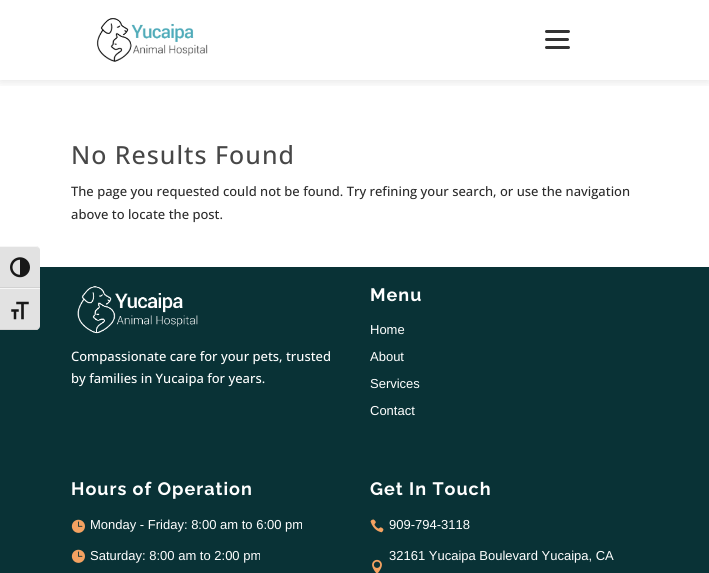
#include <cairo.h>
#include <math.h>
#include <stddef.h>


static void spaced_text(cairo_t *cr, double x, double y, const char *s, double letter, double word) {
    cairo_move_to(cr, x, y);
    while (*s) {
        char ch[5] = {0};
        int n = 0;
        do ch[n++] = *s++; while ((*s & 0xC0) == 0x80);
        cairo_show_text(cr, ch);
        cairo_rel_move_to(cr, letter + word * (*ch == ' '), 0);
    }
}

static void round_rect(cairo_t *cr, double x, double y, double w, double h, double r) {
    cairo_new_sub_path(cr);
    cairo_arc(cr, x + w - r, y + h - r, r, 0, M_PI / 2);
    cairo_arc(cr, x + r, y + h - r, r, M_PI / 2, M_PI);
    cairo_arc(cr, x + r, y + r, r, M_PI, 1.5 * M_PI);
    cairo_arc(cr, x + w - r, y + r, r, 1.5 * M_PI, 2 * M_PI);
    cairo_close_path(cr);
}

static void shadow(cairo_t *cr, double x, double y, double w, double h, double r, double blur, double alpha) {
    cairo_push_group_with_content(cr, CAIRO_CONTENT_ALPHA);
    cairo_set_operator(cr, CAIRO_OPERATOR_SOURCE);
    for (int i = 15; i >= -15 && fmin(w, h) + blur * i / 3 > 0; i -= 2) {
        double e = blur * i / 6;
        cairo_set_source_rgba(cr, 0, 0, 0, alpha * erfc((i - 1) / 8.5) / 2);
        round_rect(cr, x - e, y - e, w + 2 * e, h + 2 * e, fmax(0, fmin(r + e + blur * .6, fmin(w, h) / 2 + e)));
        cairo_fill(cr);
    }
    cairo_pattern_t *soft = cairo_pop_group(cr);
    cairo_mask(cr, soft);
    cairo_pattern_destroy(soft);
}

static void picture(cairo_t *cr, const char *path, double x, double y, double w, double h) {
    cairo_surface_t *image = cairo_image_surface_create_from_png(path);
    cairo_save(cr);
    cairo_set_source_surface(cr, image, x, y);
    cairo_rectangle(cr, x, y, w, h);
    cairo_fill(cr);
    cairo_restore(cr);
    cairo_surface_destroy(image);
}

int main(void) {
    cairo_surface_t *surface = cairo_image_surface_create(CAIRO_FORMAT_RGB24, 709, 573);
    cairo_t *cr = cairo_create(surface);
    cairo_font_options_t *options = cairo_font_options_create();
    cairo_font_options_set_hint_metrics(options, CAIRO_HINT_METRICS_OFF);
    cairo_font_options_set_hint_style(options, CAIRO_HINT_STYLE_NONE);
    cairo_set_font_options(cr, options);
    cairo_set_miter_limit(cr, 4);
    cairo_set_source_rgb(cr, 1, 1, 1);
    cairo_paint(cr);
    cairo_set_source_rgb(cr, 0.039, 0.196, 0.212);
    cairo_rectangle(cr, 0, 267, 709, 306);
    cairo_fill(cr);
    cairo_set_source_rgb(cr, 0.886, 0.886, 0.886);
    cairo_new_path(cr);
    cairo_move_to(cr, 0, 246);
    cairo_line_to(cr, 36, 246);
    cairo_curve_to(cr, 38, 246, 40, 248, 40, 250);
    cairo_line_to(cr, 40, 288);
    cairo_line_to(cr, 0, 288);
    cairo_close_path(cr);
    cairo_fill(cr);
    cairo_set_source_rgb(cr, 0.961, 0.961, 0.961);
    cairo_new_path(cr);
    cairo_move_to(cr, 0, 246);
    cairo_line_to(cr, 0, 247);
    cairo_line_to(cr, 36, 247);
    cairo_curve_to(cr, 38, 247, 40, 248, 40, 250);
    cairo_curve_to(cr, 40, 248, 38, 246, 36, 246);
    cairo_close_path(cr);
    cairo_fill(cr);
    cairo_set_source_rgb(cr, 0.824, 0.824, 0.824);
    cairo_rectangle(cr, 0, 287, 40, 1);
    cairo_fill(cr);
    picture(cr, "img1.png", 10, 257, 20, 21);
    cairo_set_source_rgb(cr, 0.886, 0.886, 0.886);
    cairo_new_path(cr);
    cairo_move_to(cr, 0, 288);
    cairo_line_to(cr, 40, 288);
    cairo_line_to(cr, 40, 326);
    cairo_curve_to(cr, 40, 328, 38, 330, 36, 330);
    cairo_line_to(cr, 0, 330);
    cairo_close_path(cr);
    cairo_fill(cr);
    cairo_set_source_rgb(cr, 0.961, 0.961, 0.961);
    cairo_rectangle(cr, 0, 288, 40, 1);
    cairo_fill(cr);
    cairo_set_source_rgb(cr, 0.824, 0.824, 0.824);
    cairo_new_path(cr);
    cairo_move_to(cr, 0, 329);
    cairo_line_to(cr, 0, 330);
    cairo_line_to(cr, 36, 330);
    cairo_curve_to(cr, 38, 330, 40, 328, 40, 326);
    cairo_curve_to(cr, 40, 328, 38, 329, 36, 329);
    cairo_close_path(cr);
    cairo_fill(cr);
    picture(cr, "img2.png", 11, 301, 18, 19);
    cairo_save(cr);
    cairo_rectangle(cr, 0, 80, 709, 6);
    cairo_clip(cr);
    cairo_set_source_rgb(cr, 0, 0, 0);
    shadow(cr, 0, 2, 709, 80, 0, 5, 0.1);
    cairo_restore(cr);
    picture(cr, "img3.png", 96, 18, 112, 44);
    cairo_set_source_rgb(cr, 0.2, 0.2, 0.2);
    round_rect(cr, 545, 38, 24, 3, 1.5);
    cairo_fill(cr);
    round_rect(cr, 545, 30, 25, 3, 1.5);
    cairo_fill(cr);
    round_rect(cr, 545, 46, 25, 3, 1.5);
    cairo_fill(cr);
    cairo_select_font_face(cr, "Open Sans Medium", CAIRO_FONT_SLANT_NORMAL, CAIRO_FONT_WEIGHT_NORMAL);
    cairo_set_font_size(cr, 25);
    cairo_set_source_rgb(cr, 0.278, 0.278, 0.278);
    spaced_text(cr, 71, 164, "No Results Found", 1, 0);
    cairo_set_font_size(cr, 13);
    cairo_set_source_rgb(cr, 0.169, 0.169, 0.169);
    cairo_move_to(cr, 71, 196);
    cairo_show_text(cr, "The page you requested could not be found. Try refining your search, or use the navigation");
    cairo_move_to(cr, 71, 219);
    cairo_show_text(cr, "above to locate the post.");
    picture(cr, "img4.png", 77, 286, 121, 48);
    cairo_set_source_rgb(cr, 1, 1, 1);
    cairo_move_to(cr, 71, 361);
    cairo_show_text(cr, "Compassionate care for your pets, trusted");
    cairo_move_to(cr, 71, 383);
    cairo_show_text(cr, "by families in Yucaipa for years.");
    cairo_select_font_face(cr, "Raleway Thin", CAIRO_FONT_SLANT_NORMAL, CAIRO_FONT_WEIGHT_NORMAL);
    cairo_set_font_size(cr, 18);
    spaced_text(cr, 370, 301, "Menu", 1, 0);
    cairo_select_font_face(cr, "Liberation Sans", CAIRO_FONT_SLANT_NORMAL, CAIRO_FONT_WEIGHT_NORMAL);
    cairo_set_font_size(cr, 13);
    cairo_move_to(cr, 370, 334);
    cairo_show_text(cr, "Home");
    cairo_move_to(cr, 370, 361);
    cairo_show_text(cr, "About");
    cairo_move_to(cr, 370, 388);
    cairo_show_text(cr, "Services");
    cairo_move_to(cr, 370, 415);
    cairo_show_text(cr, "Contact");
    cairo_select_font_face(cr, "Raleway Thin", CAIRO_FONT_SLANT_NORMAL, CAIRO_FONT_WEIGHT_NORMAL);
    cairo_set_font_size(cr, 18);
    spaced_text(cr, 71, 495, "Hours of Operation", 1, 0);
    picture(cr, "img5.png", 71, 519, 14, 14);
    cairo_select_font_face(cr, "Liberation Sans", CAIRO_FONT_SLANT_NORMAL, CAIRO_FONT_WEIGHT_NORMAL);
    cairo_set_font_size(cr, 13);
    cairo_move_to(cr, 90, 529);
    cairo_show_text(cr, "Monday - Friday: 8:00 am to 6:00 pm");
    picture(cr, "img5.png", 71, 549, 14, 14);
    cairo_move_to(cr, 90, 560);
    cairo_show_text(cr, "Saturday: 8:00 am to 2:00 pm");
    cairo_select_font_face(cr, "Raleway Thin", CAIRO_FONT_SLANT_NORMAL, CAIRO_FONT_WEIGHT_NORMAL);
    cairo_set_font_size(cr, 18);
    spaced_text(cr, 370, 495, "Get In Touch", 1, 0);
    picture(cr, "img6.png", 370, 519, 14, 14);
    cairo_select_font_face(cr, "Liberation Sans", CAIRO_FONT_SLANT_NORMAL, CAIRO_FONT_WEIGHT_NORMAL);
    cairo_set_font_size(cr, 13);
    cairo_move_to(cr, 389, 529);
    cairo_show_text(cr, "909-794-3118");
    cairo_move_to(cr, 389, 560);
    cairo_show_text(cr, "32161 Yucaipa Boulevard Yucaipa, CA");
    picture(cr, "img7.png", 372, 559, 10, 14);
    cairo_surface_write_to_png(surface, "page.png");
    cairo_font_options_destroy(options);
    cairo_destroy(cr);
    cairo_surface_destroy(surface);
    return 0;
}
